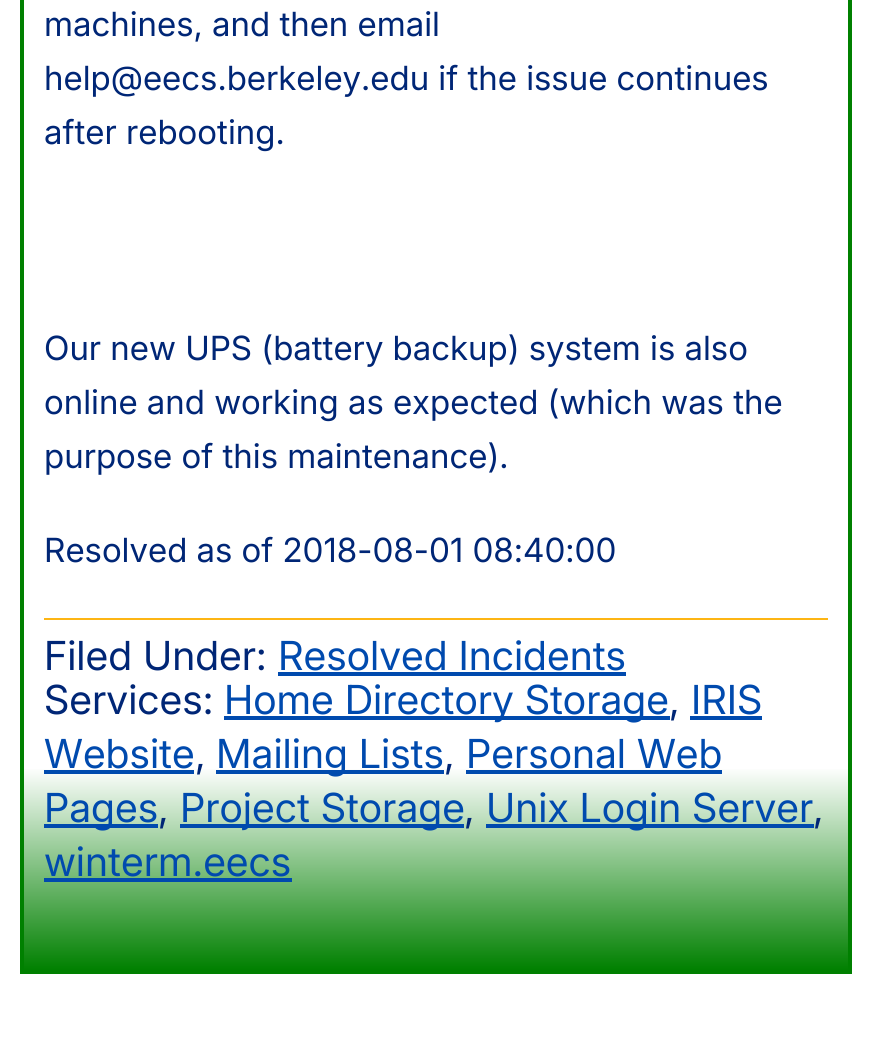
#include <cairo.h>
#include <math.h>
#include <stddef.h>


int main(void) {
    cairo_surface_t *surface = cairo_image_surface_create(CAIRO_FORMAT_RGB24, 872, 1041);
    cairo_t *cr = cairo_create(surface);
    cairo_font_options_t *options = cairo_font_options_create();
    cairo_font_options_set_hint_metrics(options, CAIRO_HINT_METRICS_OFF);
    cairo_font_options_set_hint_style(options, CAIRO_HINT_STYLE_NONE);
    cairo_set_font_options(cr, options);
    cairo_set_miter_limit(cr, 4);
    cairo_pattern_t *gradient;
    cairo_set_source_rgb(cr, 1, 1, 1);
    cairo_paint(cr);
    gradient = cairo_pattern_create_linear(436, -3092, 436, 970);
    cairo_pattern_add_color_stop_rgba(gradient, 0.95, 1, 1, 1, 1);
    cairo_pattern_add_color_stop_rgba(gradient, 1, 0, 0.502, 0, 1);
    cairo_set_source(cr, gradient);
    cairo_pattern_destroy(gradient);
    cairo_rectangle(cr, 24, 769, 824, 201);
    cairo_fill(cr);
    cairo_rectangle(cr, 22, -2, 828, 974);
    cairo_set_source_rgb(cr, 0, 0.502, 0);
    cairo_set_line_width(cr, 4);
    cairo_stroke(cr);
    cairo_select_font_face(cr, "Inter", CAIRO_FONT_SLANT_NORMAL, CAIRO_FONT_WEIGHT_NORMAL);
    cairo_set_font_size(cr, 33.3);
    cairo_set_source_rgb(cr, 0, 0.149, 0.463);
    cairo_move_to(cr, 44, 36);
    cairo_show_text(cr, "machines, and then email");
    cairo_move_to(cr, 44, 90);
    cairo_show_text(cr, "help@eecs.berkeley.edu if the issue continues");
    cairo_move_to(cr, 44, 144);
    cairo_show_text(cr, "after rebooting.");
    cairo_move_to(cr, 44, 360);
    cairo_show_text(cr, "Our new UPS (battery backup) system is also");
    cairo_move_to(cr, 44, 414);
    cairo_show_text(cr, "online and working as expected (which was the");
    cairo_move_to(cr, 44, 468);
    cairo_show_text(cr, "purpose of this maintenance).");
    cairo_move_to(cr, 44, 562);
    cairo_show_text(cr, "Resolved as of 2018-08-01 08:40:00");
    cairo_set_source_rgb(cr, 0.992, 0.71, 0.082);
    cairo_rectangle(cr, 44, 618, 784, 2);
    cairo_fill(cr);
    cairo_select_font_face(cr, "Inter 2", CAIRO_FONT_SLANT_NORMAL, CAIRO_FONT_WEIGHT_NORMAL);
    cairo_set_font_size(cr, 40);
    cairo_set_source_rgb(cr, 0, 0.149, 0.463);
    cairo_move_to(cr, 44, 670);
    cairo_show_text(cr, "Filed Under:");
    cairo_set_source_rgb(cr, 0, 0.29, 0.682);
    cairo_move_to(cr, 278, 670);
    cairo_show_text(cr, "Resolved Incidents");
    cairo_rectangle(cr, 278, 672, 348, 4);
    cairo_fill(cr);
    cairo_set_source_rgb(cr, 0, 0.149, 0.463);
    cairo_move_to(cr, 44, 714);
    cairo_show_text(cr, "Services:");
    cairo_set_source_rgb(cr, 0, 0.29, 0.682);
    cairo_rectangle(cr, 224, 716, 446, 4);
    cairo_fill(cr);
    cairo_move_to(cr, 224, 714);
    cairo_show_text(cr, "Home Directory Storage");
    cairo_set_source_rgb(cr, 0, 0.149, 0.463);
    cairo_move_to(cr, 669, 714);
    cairo_show_text(cr, ",");
    cairo_set_source_rgb(cr, 0, 0.29, 0.682);
    cairo_move_to(cr, 691, 714);
    cairo_show_text(cr, "IRIS");
    cairo_rectangle(cr, 690, 716, 72, 4);
    cairo_fill(cr);
    cairo_move_to(cr, 44, 768);
    cairo_show_text(cr, "Website");
    cairo_rectangle(cr, 44, 770, 150, 4);
    cairo_fill(cr);
    cairo_set_source_rgb(cr, 0, 0.149, 0.463);
    cairo_move_to(cr, 195, 768);
    cairo_show_text(cr, ",");
    cairo_set_source_rgb(cr, 0, 0.29, 0.682);
    cairo_rectangle(cr, 216, 770, 228, 4);
    cairo_fill(cr);
    cairo_move_to(cr, 216, 768);
    cairo_show_text(cr, "Mailing Lists");
    cairo_set_source_rgb(cr, 0, 0.149, 0.463);
    cairo_move_to(cr, 444, 768);
    cairo_show_text(cr, ",");
    cairo_set_source_rgb(cr, 0, 0.29, 0.682);
    cairo_move_to(cr, 466, 768);
    cairo_show_text(cr, "Personal Web");
    cairo_rectangle(cr, 466, 770, 256, 4);
    cairo_fill(cr);
    cairo_rectangle(cr, 44, 824, 114, 4);
    cairo_fill(cr);
    cairo_move_to(cr, 44, 822);
    cairo_show_text(cr, "Pages");
    cairo_set_source_rgb(cr, 0, 0.149, 0.463);
    cairo_move_to(cr, 158, 822);
    cairo_show_text(cr, ",");
    cairo_set_source_rgb(cr, 0, 0.29, 0.682);
    cairo_rectangle(cr, 180, 824, 284, 4);
    cairo_fill(cr);
    cairo_move_to(cr, 180, 822);
    cairo_show_text(cr, "Project Storage");
    cairo_set_source_rgb(cr, 0, 0.149, 0.463);
    cairo_move_to(cr, 464, 822);
    cairo_show_text(cr, ",");
    cairo_set_source_rgb(cr, 0, 0.29, 0.682);
    cairo_rectangle(cr, 486, 824, 328, 4);
    cairo_fill(cr);
    cairo_move_to(cr, 486, 822);
    cairo_show_text(cr, "Unix Login Server");
    cairo_set_source_rgb(cr, 0, 0.149, 0.463);
    cairo_move_to(cr, 813, 822);
    cairo_show_text(cr, ",");
    cairo_set_source_rgb(cr, 0, 0.29, 0.682);
    cairo_move_to(cr, 44, 876);
    cairo_show_text(cr, "winterm.eecs");
    cairo_rectangle(cr, 44, 878, 248, 4);
    cairo_fill(cr);
    cairo_surface_write_to_png(surface, "page.png");
    cairo_font_options_destroy(options);
    cairo_destroy(cr);
    cairo_surface_destroy(surface);
    return 0;
}
